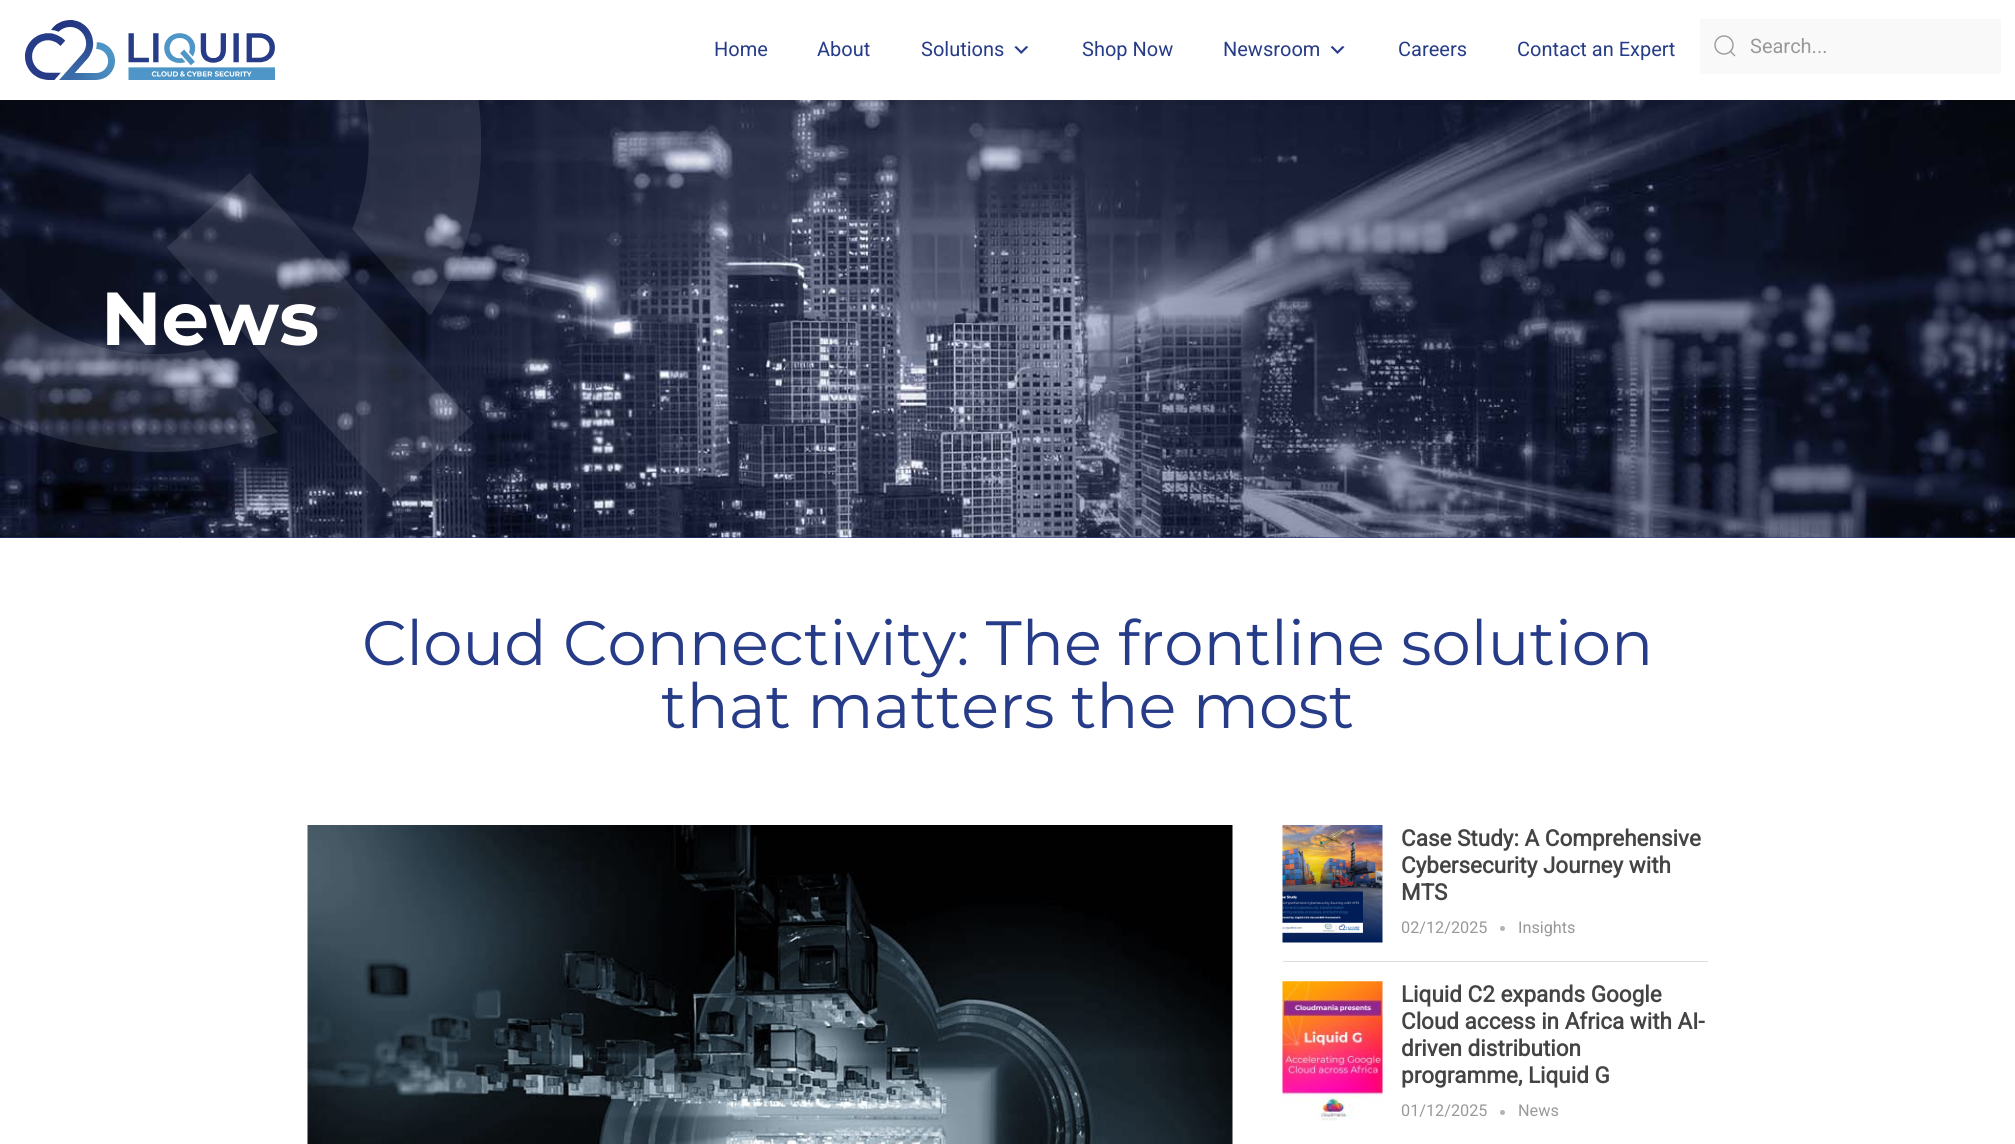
#include <cairo.h>
#include <math.h>
#include <stddef.h>


static void round_rect(cairo_t *cr, double x, double y, double w, double h, double r) {
    cairo_new_sub_path(cr);
    cairo_arc(cr, x + w - r, y + h - r, r, 0, M_PI / 2);
    cairo_arc(cr, x + r, y + h - r, r, M_PI / 2, M_PI);
    cairo_arc(cr, x + r, y + r, r, M_PI, 1.5 * M_PI);
    cairo_arc(cr, x + w - r, y + r, r, 1.5 * M_PI, 2 * M_PI);
    cairo_close_path(cr);
}

static void shadow(cairo_t *cr, double x, double y, double w, double h, double r, double blur, double alpha) {
    cairo_push_group_with_content(cr, CAIRO_CONTENT_ALPHA);
    cairo_set_operator(cr, CAIRO_OPERATOR_SOURCE);
    for (int i = 15; i >= -15 && fmin(w, h) + blur * i / 3 > 0; i -= 2) {
        double e = blur * i / 6;
        cairo_set_source_rgba(cr, 0, 0, 0, alpha * erfc((i - 1) / 8.5) / 2);
        round_rect(cr, x - e, y - e, w + 2 * e, h + 2 * e, fmax(0, fmin(r + e + blur * .6, fmin(w, h) / 2 + e)));
        cairo_fill(cr);
    }
    cairo_pattern_t *soft = cairo_pop_group(cr);
    cairo_mask(cr, soft);
    cairo_pattern_destroy(soft);
}

static void picture(cairo_t *cr, const char *path, double x, double y, double w, double h) {
    cairo_surface_t *image = cairo_image_surface_create_from_png(path);
    cairo_save(cr);
    cairo_set_source_surface(cr, image, x, y);
    cairo_rectangle(cr, x, y, w, h);
    cairo_fill(cr);
    cairo_restore(cr);
    cairo_surface_destroy(image);
}

int main(void) {
    cairo_surface_t *surface = cairo_image_surface_create(CAIRO_FORMAT_RGB24, 2015, 1144);
    cairo_t *cr = cairo_create(surface);
    cairo_font_options_t *options = cairo_font_options_create();
    cairo_font_options_set_hint_metrics(options, CAIRO_HINT_METRICS_OFF);
    cairo_font_options_set_hint_style(options, CAIRO_HINT_STYLE_NONE);
    cairo_set_font_options(cr, options);
    cairo_set_miter_limit(cr, 4);
    cairo_set_source_rgb(cr, 1, 1, 1);
    cairo_paint(cr);
    cairo_set_source_rgb(cr, 0.153, 0.235, 0.533);
    cairo_rectangle(cr, 0, 537, 2015, 1);
    cairo_fill(cr);
    picture(cr, "img4.png", 0, 100, 2015, 438);
    picture(cr, "img5.png", 0, 100, 481, 398);
    cairo_save(cr);
    cairo_rectangle(cr, 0, 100, 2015, 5);
    cairo_clip(cr);
    cairo_set_source_rgb(cr, 0, 0, 0);
    shadow(cr, 0, 0, 2015, 100, 0, 6, 0.1);
    cairo_restore(cr);
    picture(cr, "img1.png", 25, 20, 250, 60);
    cairo_select_font_face(cr, "Roboto", CAIRO_FONT_SLANT_NORMAL, CAIRO_FONT_WEIGHT_NORMAL);
    cairo_set_font_size(cr, 20);
    cairo_move_to(cr, 714, 56);
    cairo_show_text(cr, "Home");
    cairo_move_to(cr, 817, 56);
    cairo_show_text(cr, "About");
    cairo_move_to(cr, 921, 56);
    cairo_show_text(cr, "Solutions");
    picture(cr, "img2.png", 1014, 46, 15, 8);
    cairo_move_to(cr, 1082, 56);
    cairo_show_text(cr, "Shop Now");
    cairo_move_to(cr, 1223, 56);
    cairo_show_text(cr, "Newsroom");
    picture(cr, "img3.png", 1330, 46, 15, 8);
    cairo_move_to(cr, 1398, 56);
    cairo_show_text(cr, "Careers");
    cairo_move_to(cr, 1517, 56);
    cairo_show_text(cr, "Contact an Expert");
    cairo_set_source_rgb(cr, 0.973, 0.973, 0.973);
    cairo_rectangle(cr, 1700, 19, 301, 55);
    cairo_fill(cr);
    cairo_arc(cr, 1724, 45, 9, 0, 2 * M_PI);
    cairo_set_source_rgb(cr, 0.6, 0.6, 0.6);
    cairo_set_line_width(cr, 1.4);
    cairo_stroke(cr);
    cairo_new_path(cr);
    cairo_move_to(cr, 1730, 51);
    cairo_line_to(cr, 1735, 56);
    cairo_close_path(cr);
    cairo_stroke(cr);
    cairo_move_to(cr, 1750, 53);
    cairo_show_text(cr, "Search...");
    cairo_select_font_face(cr, "Montserrat", CAIRO_FONT_SLANT_NORMAL, CAIRO_FONT_WEIGHT_BOLD);
    cairo_set_font_size(cr, 75);
    cairo_set_source_rgb(cr, 1, 1, 1);
    cairo_move_to(cr, 101, 345);
    cairo_show_text(cr, "News");
    cairo_select_font_face(cr, "Montserrat Thin", CAIRO_FONT_SLANT_NORMAL, CAIRO_FONT_WEIGHT_NORMAL);
    cairo_set_font_size(cr, 62.5);
    cairo_set_source_rgb(cr, 0.153, 0.235, 0.533);
    cairo_move_to(cr, 362, 665);
    cairo_show_text(cr, "Cloud Connectivity: The frontline solution");
    cairo_move_to(cr, 661, 728);
    cairo_show_text(cr, "that matters the most");
    picture(cr, "img6.png", 307, 825, 926, 319);
    cairo_set_source_rgb(cr, 0.867, 0.867, 0.867);
    cairo_rectangle(cr, 1283, 961, 425, 1);
    cairo_fill(cr);
    picture(cr, "img7.png", 1282, 825, 101, 118);
    cairo_select_font_face(cr, "Roboto", CAIRO_FONT_SLANT_NORMAL, CAIRO_FONT_WEIGHT_BOLD);
    cairo_set_font_size(cr, 22.5);
    cairo_set_source_rgb(cr, 0.267, 0.267, 0.267);
    cairo_move_to(cr, 1401, 846);
    cairo_show_text(cr, "Case Study: A Comprehensive");
    cairo_move_to(cr, 1401, 873);
    cairo_show_text(cr, "Cybersecurity Journey with");
    cairo_move_to(cr, 1401, 900);
    cairo_show_text(cr, "MTS");
    cairo_select_font_face(cr, "Roboto", CAIRO_FONT_SLANT_NORMAL, CAIRO_FONT_WEIGHT_NORMAL);
    cairo_set_font_size(cr, 16.25);
    cairo_set_source_rgb(cr, 0.6, 0.6, 0.6);
    cairo_move_to(cr, 1401, 933);
    cairo_show_text(cr, "02/12/2025");
    cairo_set_source_rgb(cr, 0.678, 0.71, 0.741);
    cairo_new_path(cr);
    cairo_arc(cr, 1502.5, 928.5, 2.5, 0, 2 * M_PI);
    cairo_fill(cr);
    cairo_set_source_rgb(cr, 0.6, 0.6, 0.6);
    cairo_move_to(cr, 1518, 933);
    cairo_show_text(cr, "Insights");
    picture(cr, "img8.png", 1282, 981, 101, 140);
    cairo_select_font_face(cr, "Roboto", CAIRO_FONT_SLANT_NORMAL, CAIRO_FONT_WEIGHT_BOLD);
    cairo_set_font_size(cr, 22.5);
    cairo_set_source_rgb(cr, 0.267, 0.267, 0.267);
    cairo_move_to(cr, 1401, 1002);
    cairo_show_text(cr, "Liquid C2 expands Google");
    cairo_move_to(cr, 1401, 1029);
    cairo_show_text(cr, "Cloud access in Africa with AI-");
    cairo_move_to(cr, 1401, 1056);
    cairo_show_text(cr, "driven distribution");
    cairo_move_to(cr, 1401, 1083);
    cairo_show_text(cr, "programme, Liquid G");
    cairo_select_font_face(cr, "Roboto", CAIRO_FONT_SLANT_NORMAL, CAIRO_FONT_WEIGHT_NORMAL);
    cairo_set_font_size(cr, 16.25);
    cairo_set_source_rgb(cr, 0.6, 0.6, 0.6);
    cairo_move_to(cr, 1401, 1116);
    cairo_show_text(cr, "01/12/2025");
    cairo_set_source_rgb(cr, 0.678, 0.71, 0.741);
    cairo_new_path(cr);
    cairo_arc(cr, 1502.5, 1112.5, 2.5, 0, 2 * M_PI);
    cairo_fill(cr);
    cairo_set_source_rgb(cr, 0.6, 0.6, 0.6);
    cairo_move_to(cr, 1518, 1116);
    cairo_show_text(cr, "News");
    cairo_surface_write_to_png(surface, "page.png");
    cairo_font_options_destroy(options);
    cairo_destroy(cr);
    cairo_surface_destroy(surface);
    return 0;
}
